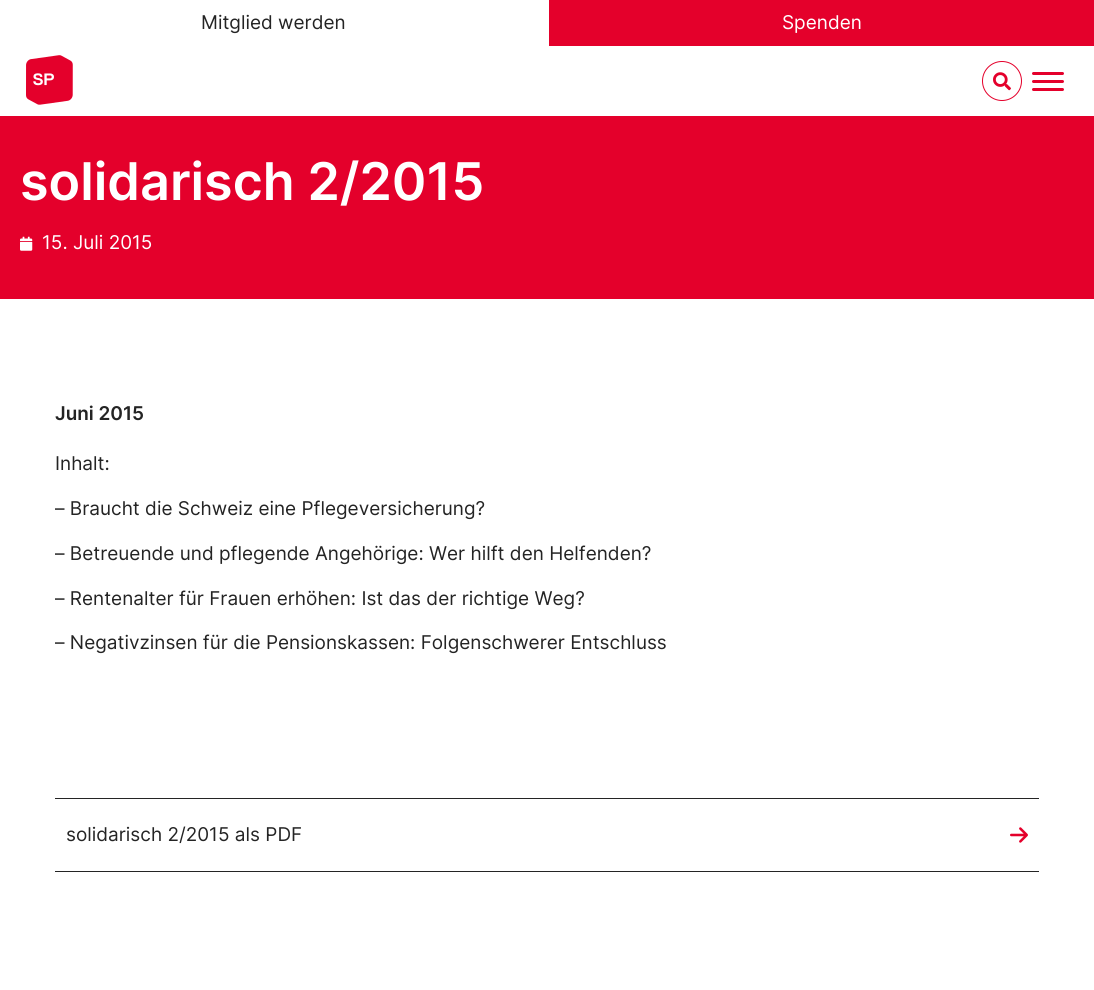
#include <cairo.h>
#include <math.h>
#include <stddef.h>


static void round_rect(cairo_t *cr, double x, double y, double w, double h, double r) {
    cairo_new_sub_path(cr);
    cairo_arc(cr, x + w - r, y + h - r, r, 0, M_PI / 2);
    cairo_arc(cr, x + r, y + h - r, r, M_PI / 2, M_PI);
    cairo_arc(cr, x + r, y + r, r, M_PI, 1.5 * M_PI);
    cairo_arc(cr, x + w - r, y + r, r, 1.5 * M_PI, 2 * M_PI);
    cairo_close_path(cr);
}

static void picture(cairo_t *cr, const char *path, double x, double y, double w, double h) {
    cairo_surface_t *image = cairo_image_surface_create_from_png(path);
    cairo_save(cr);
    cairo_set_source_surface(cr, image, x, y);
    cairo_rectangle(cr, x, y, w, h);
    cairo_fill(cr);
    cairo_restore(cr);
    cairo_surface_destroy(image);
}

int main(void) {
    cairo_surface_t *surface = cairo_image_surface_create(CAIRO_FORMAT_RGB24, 1094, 990);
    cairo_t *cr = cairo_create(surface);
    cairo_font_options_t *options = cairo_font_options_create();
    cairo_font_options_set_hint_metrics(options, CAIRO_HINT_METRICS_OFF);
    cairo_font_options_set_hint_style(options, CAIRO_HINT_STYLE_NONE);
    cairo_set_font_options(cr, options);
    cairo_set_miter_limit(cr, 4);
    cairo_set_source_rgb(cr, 1, 1, 1);
    cairo_paint(cr);
    cairo_set_source_rgb(cr, 0.894, 0, 0.169);
    cairo_rectangle(cr, 549, 0, 545, 46);
    cairo_fill(cr);
    cairo_select_font_face(cr, "Inter", CAIRO_FONT_SLANT_NORMAL, CAIRO_FONT_WEIGHT_NORMAL);
    cairo_set_font_size(cr, 19);
    cairo_set_source_rgb(cr, 0.141, 0.141, 0.141);
    cairo_move_to(cr, 201, 29);
    cairo_show_text(cr, "Mitglied werden");
    cairo_set_source_rgb(cr, 1, 1, 1);
    cairo_move_to(cr, 782, 29);
    cairo_show_text(cr, "Spenden");
    picture(cr, "img1.png", 26, 55, 47, 50);
    cairo_arc(cr, 1002, 81, 19.5, 0, 2 * M_PI);
    cairo_set_source_rgb(cr, 0.894, 0, 0.169);
    cairo_set_line_width(cr, 1);
    cairo_stroke(cr);
    picture(cr, "img2.png", 993, 72, 18, 19);
    round_rect(cr, 1032, 72, 32, 3, 1.5);
    cairo_fill(cr);
    round_rect(cr, 1032, 80, 32, 3, 1.5);
    cairo_fill(cr);
    round_rect(cr, 1032, 88, 32, 3, 1.5);
    cairo_fill(cr);
    cairo_rectangle(cr, 0, 116, 1094, 183);
    cairo_fill(cr);
    cairo_select_font_face(cr, "Inter SemiBold", CAIRO_FONT_SLANT_NORMAL, CAIRO_FONT_WEIGHT_NORMAL);
    cairo_set_font_size(cr, 52);
    cairo_set_source_rgb(cr, 1, 1, 1);
    cairo_move_to(cr, 20, 200);
    cairo_show_text(cr, "solidarisch 2/2015");
    picture(cr, "img3.png", 20, 236, 13, 15);
    cairo_select_font_face(cr, "Inter", CAIRO_FONT_SLANT_NORMAL, CAIRO_FONT_WEIGHT_NORMAL);
    cairo_set_font_size(cr, 19);
    cairo_move_to(cr, 42, 249);
    cairo_show_text(cr, "15. Juli 2015");
    cairo_select_font_face(cr, "Inter SemiBold", CAIRO_FONT_SLANT_NORMAL, CAIRO_FONT_WEIGHT_NORMAL);
    cairo_set_source_rgb(cr, 0.141, 0.141, 0.141);
    cairo_move_to(cr, 55, 420);
    cairo_show_text(cr, "Juni 2015");
    cairo_select_font_face(cr, "Inter", CAIRO_FONT_SLANT_NORMAL, CAIRO_FONT_WEIGHT_NORMAL);
    cairo_move_to(cr, 55, 470);
    cairo_show_text(cr, "Inhalt:");
    cairo_move_to(cr, 55, 515);
    cairo_show_text(cr, "– Braucht die Schweiz eine Pflegeversicherung?");
    cairo_move_to(cr, 55, 560);
    cairo_show_text(cr, "– Betreuende und pflegende Angehörige: Wer hilft den Helfenden?");
    cairo_move_to(cr, 55, 605);
    cairo_show_text(cr, "– Rentenalter für Frauen erhöhen: Ist das der richtige Weg?");
    cairo_move_to(cr, 55, 649);
    cairo_show_text(cr, "– Negativzinsen für die Pensionskassen: Folgenschwerer Entschluss");
    cairo_rectangle(cr, 55, 798, 984, 1);
    cairo_fill(cr);
    cairo_rectangle(cr, 55, 871, 984, 1);
    cairo_fill(cr);
    cairo_move_to(cr, 66, 841);
    cairo_show_text(cr, "solidarisch 2/2015 als PDF");
    picture(cr, "img4.png", 1010, 827, 18, 16);
    cairo_surface_write_to_png(surface, "page.png");
    cairo_font_options_destroy(options);
    cairo_destroy(cr);
    cairo_surface_destroy(surface);
    return 0;
}
